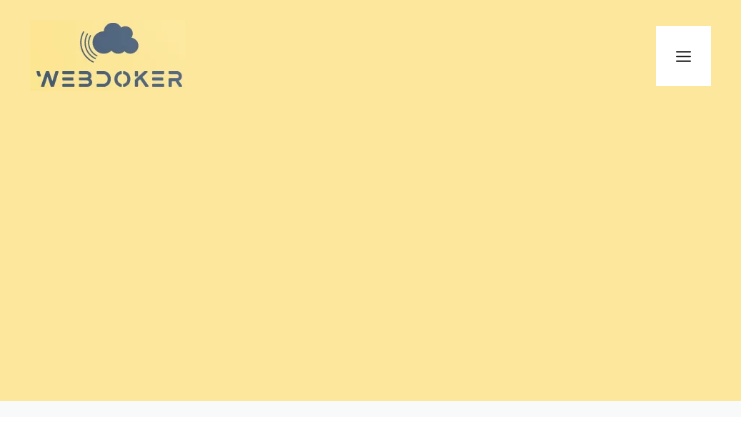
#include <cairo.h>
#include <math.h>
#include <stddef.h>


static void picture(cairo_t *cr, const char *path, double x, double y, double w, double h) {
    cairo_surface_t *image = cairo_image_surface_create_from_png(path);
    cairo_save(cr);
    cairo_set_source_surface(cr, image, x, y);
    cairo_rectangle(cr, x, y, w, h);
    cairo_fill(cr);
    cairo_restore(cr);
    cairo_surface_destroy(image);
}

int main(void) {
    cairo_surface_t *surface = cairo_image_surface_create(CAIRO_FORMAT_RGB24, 741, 447);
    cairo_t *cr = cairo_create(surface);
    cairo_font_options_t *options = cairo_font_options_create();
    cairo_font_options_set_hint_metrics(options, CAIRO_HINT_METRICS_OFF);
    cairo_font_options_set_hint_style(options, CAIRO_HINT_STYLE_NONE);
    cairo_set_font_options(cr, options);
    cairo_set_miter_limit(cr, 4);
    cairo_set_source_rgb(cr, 0.969, 0.973, 0.976);
    cairo_paint(cr);
    cairo_set_source_rgb(cr, 0.992, 0.906, 0.616);
    cairo_rectangle(cr, 0, 0, 741, 401);
    cairo_fill(cr);
    picture(cr, "img1.png", 30, 20, 155, 71);
    cairo_set_source_rgb(cr, 1, 1, 1);
    cairo_rectangle(cr, 656, 26, 55, 60);
    cairo_fill(cr);
    picture(cr, "img2.png", 676, 51, 15, 11);
    cairo_rectangle(cr, 0, 417, 741, 30);
    cairo_fill(cr);
    cairo_surface_write_to_png(surface, "page.png");
    cairo_font_options_destroy(options);
    cairo_destroy(cr);
    cairo_surface_destroy(surface);
    return 0;
}
